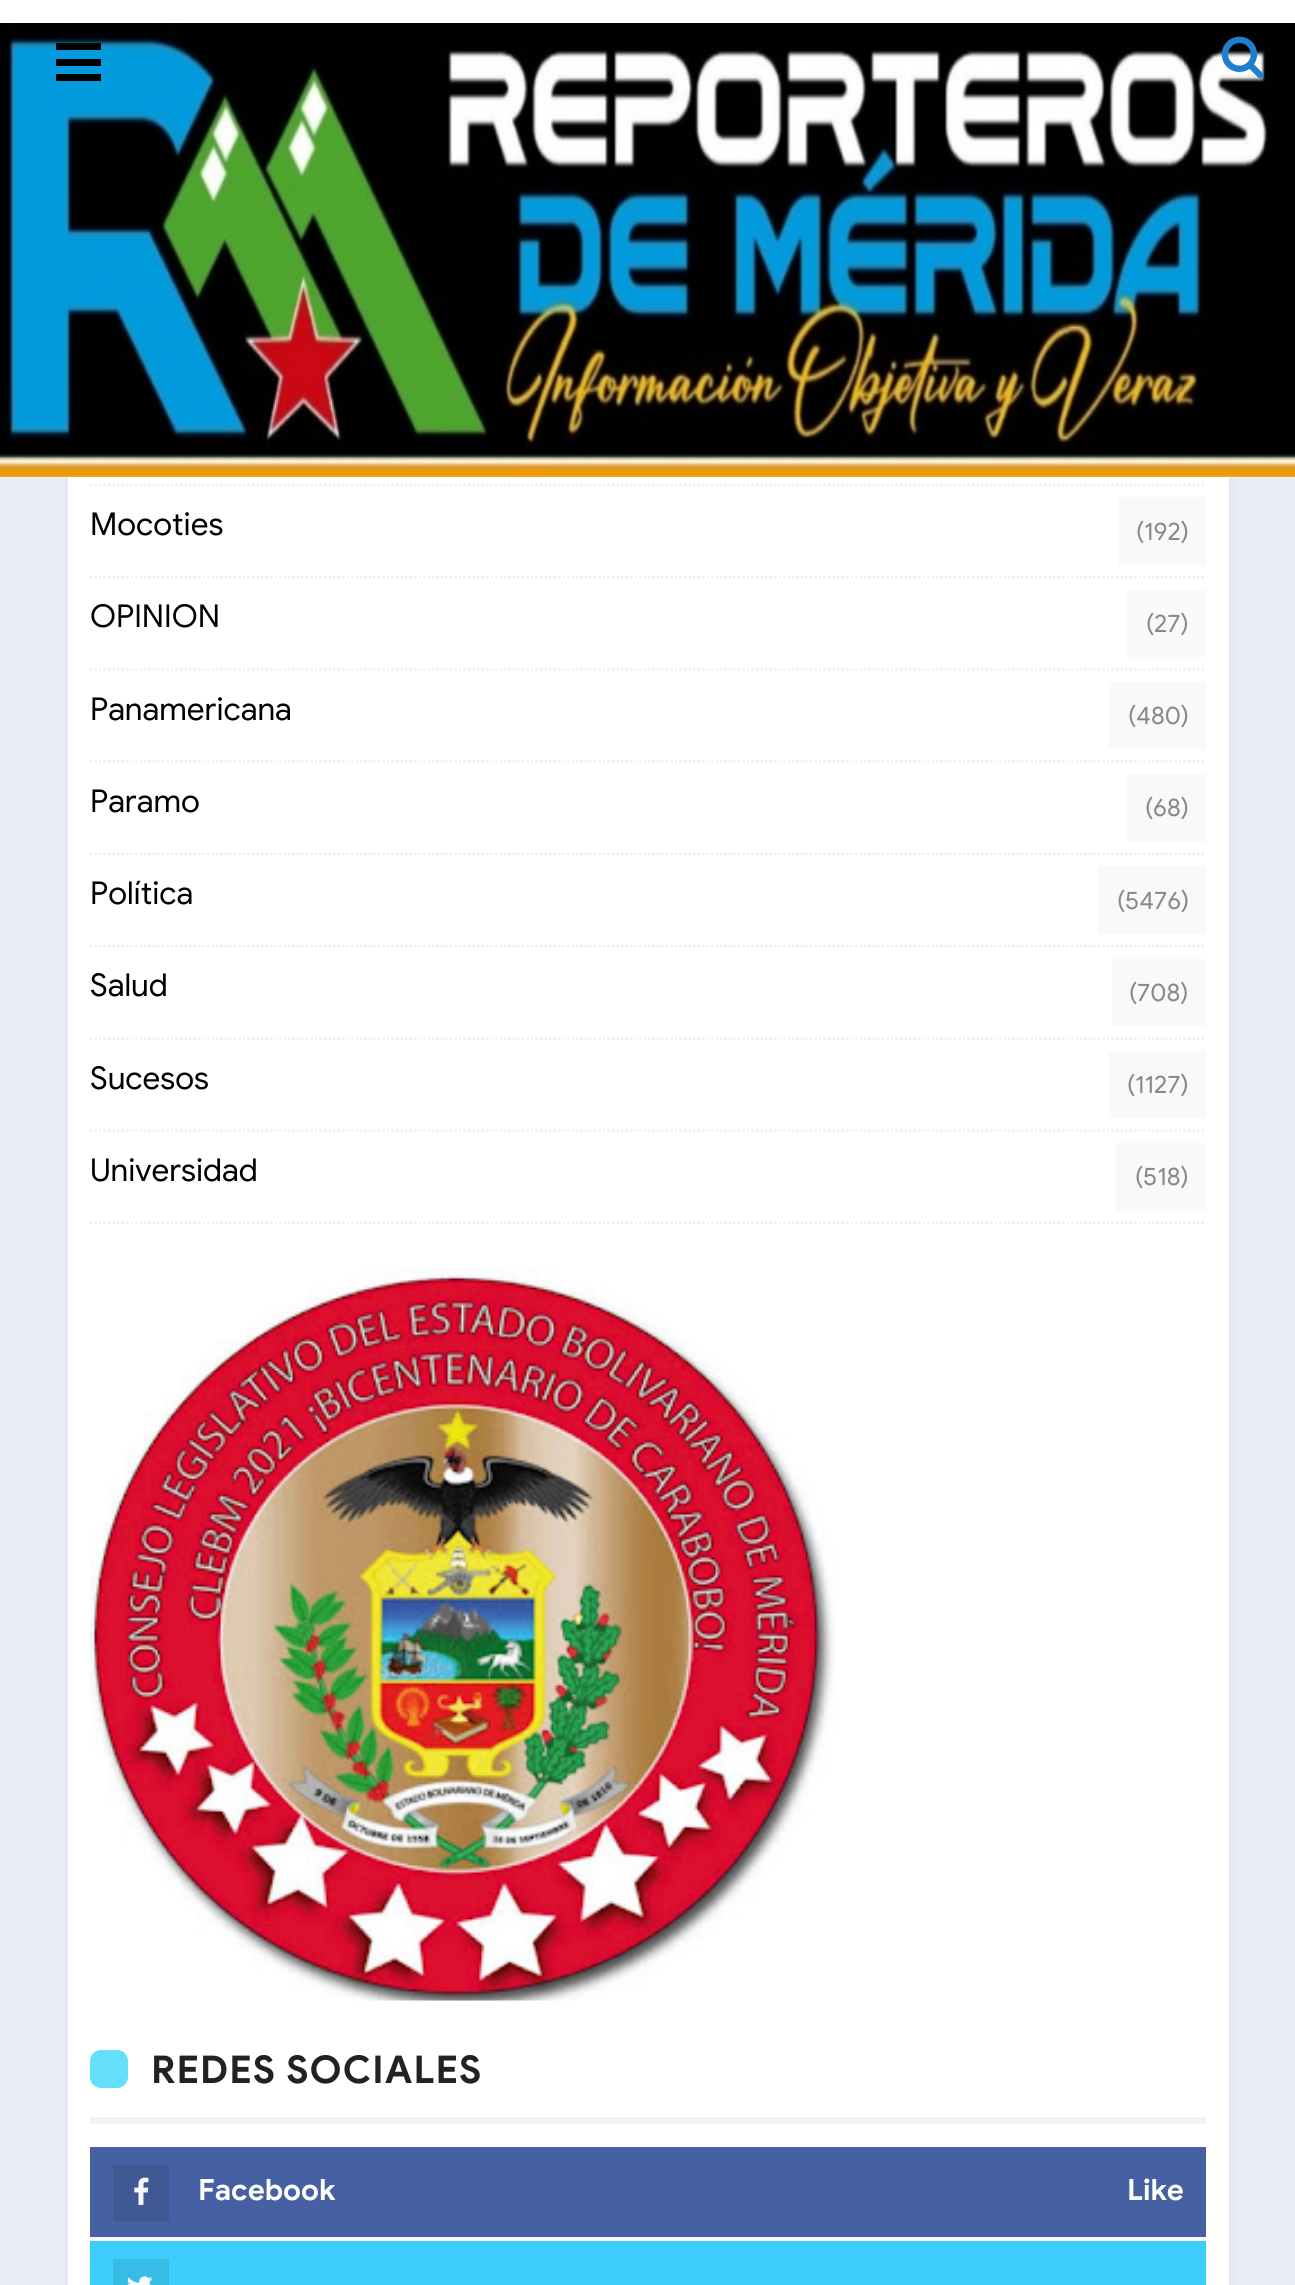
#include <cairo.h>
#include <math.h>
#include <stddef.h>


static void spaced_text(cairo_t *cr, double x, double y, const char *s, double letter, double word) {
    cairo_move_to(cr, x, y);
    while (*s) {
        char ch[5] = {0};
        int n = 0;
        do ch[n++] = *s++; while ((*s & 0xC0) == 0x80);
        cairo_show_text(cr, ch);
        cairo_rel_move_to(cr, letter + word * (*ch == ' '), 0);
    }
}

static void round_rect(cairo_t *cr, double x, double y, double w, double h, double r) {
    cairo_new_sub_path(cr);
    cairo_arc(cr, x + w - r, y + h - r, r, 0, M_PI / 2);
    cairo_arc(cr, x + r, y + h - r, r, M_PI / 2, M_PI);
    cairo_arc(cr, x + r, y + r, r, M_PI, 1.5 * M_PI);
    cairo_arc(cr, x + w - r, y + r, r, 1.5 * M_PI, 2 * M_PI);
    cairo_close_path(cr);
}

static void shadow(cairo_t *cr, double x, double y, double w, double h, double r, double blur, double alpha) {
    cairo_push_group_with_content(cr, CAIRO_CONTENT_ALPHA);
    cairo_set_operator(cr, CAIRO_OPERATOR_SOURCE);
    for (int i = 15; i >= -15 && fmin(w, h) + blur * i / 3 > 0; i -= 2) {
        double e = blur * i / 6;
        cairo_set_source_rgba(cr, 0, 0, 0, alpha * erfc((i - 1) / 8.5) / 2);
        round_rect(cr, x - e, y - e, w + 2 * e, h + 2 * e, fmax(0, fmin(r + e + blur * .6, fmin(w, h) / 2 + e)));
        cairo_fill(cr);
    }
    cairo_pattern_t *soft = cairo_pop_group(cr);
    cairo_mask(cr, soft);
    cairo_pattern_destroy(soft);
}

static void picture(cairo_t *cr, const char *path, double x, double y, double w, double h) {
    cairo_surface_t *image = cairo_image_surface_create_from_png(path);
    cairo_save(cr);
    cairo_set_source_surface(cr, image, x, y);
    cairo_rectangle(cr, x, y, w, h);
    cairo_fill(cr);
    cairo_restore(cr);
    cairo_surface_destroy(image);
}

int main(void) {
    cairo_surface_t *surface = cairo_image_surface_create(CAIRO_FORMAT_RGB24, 1295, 2285);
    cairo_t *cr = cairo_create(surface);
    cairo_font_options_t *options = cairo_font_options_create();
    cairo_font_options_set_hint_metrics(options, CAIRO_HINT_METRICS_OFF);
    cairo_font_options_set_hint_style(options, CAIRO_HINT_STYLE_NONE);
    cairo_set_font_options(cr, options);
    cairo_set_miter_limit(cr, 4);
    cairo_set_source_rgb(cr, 0.914, 0.933, 0.973);
    cairo_paint(cr);
    cairo_set_source_rgb(cr, 0, 0, 0);
    shadow(cr, 68, -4, 1161, 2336, 23, 8, 0.06);
    cairo_set_source_rgb(cr, 1, 1, 1);
    cairo_rectangle(cr, 0, 0, 1295, 23);
    cairo_fill(cr);
    cairo_rectangle(cr, 68, 475, 1161, 1810);
    cairo_fill(cr);
    picture(cr, "img1.png", 0, 23, 1295, 454);
    cairo_set_source_rgb(cr, 0, 0, 0);
    cairo_rectangle(cr, 56, 43, 45, 7);
    cairo_fill(cr);
    cairo_rectangle(cr, 56, 59, 45, 7);
    cairo_fill(cr);
    cairo_rectangle(cr, 56, 74, 45, 7);
    cairo_fill(cr);
    picture(cr, "img2.png", 1221, 36, 43, 43);
    cairo_new_path(cr);
    cairo_move_to(cr, 90, 485);
    cairo_line_to(cr, 1206, 485);
    cairo_set_source_rgb(cr, 0.922, 0.922, 0.922);
    cairo_set_line_width(cr, 2.2);
    cairo_set_dash(cr, (double[]){2.25, 2.25}, 2, 0);
    cairo_stroke(cr);
    cairo_new_path(cr);
    cairo_move_to(cr, 90, 577);
    cairo_line_to(cr, 1206, 577);
    cairo_stroke(cr);
    cairo_select_font_face(cr, "Google Sans", CAIRO_FONT_SLANT_NORMAL, CAIRO_FONT_WEIGHT_NORMAL);
    cairo_set_font_size(cr, 31.5);
    cairo_set_source_rgb(cr, 0, 0, 0);
    cairo_move_to(cr, 90, 535);
    cairo_show_text(cr, "Mocoties");
    cairo_set_source_rgb(cr, 0.976, 0.976, 0.976);
    cairo_rectangle(cr, 1118, 497, 88, 68);
    cairo_fill(cr);
    cairo_set_font_size(cr, 25);
    cairo_set_source_rgb(cr, 0.533, 0.533, 0.533);
    cairo_move_to(cr, 1136, 540);
    cairo_show_text(cr, "(192)");
    cairo_new_path(cr);
    cairo_move_to(cr, 90, 669.5);
    cairo_line_to(cr, 1206, 669.5);
    cairo_set_source_rgb(cr, 0.922, 0.922, 0.922);
    cairo_stroke(cr);
    cairo_set_font_size(cr, 31.5);
    cairo_set_source_rgb(cr, 0, 0, 0);
    cairo_move_to(cr, 90, 627);
    cairo_show_text(cr, "OPINION");
    cairo_set_source_rgb(cr, 0.976, 0.976, 0.976);
    cairo_rectangle(cr, 1127, 590, 79, 67);
    cairo_fill(cr);
    cairo_set_font_size(cr, 25);
    cairo_set_source_rgb(cr, 0.533, 0.533, 0.533);
    cairo_move_to(cr, 1146, 632);
    cairo_show_text(cr, "(27)");
    cairo_new_path(cr);
    cairo_move_to(cr, 90, 761.5);
    cairo_line_to(cr, 1206, 761.5);
    cairo_set_source_rgb(cr, 0.922, 0.922, 0.922);
    cairo_stroke(cr);
    cairo_set_font_size(cr, 31.5);
    cairo_set_source_rgb(cr, 0, 0, 0);
    cairo_move_to(cr, 90, 720);
    cairo_show_text(cr, "Panamericana");
    cairo_set_source_rgb(cr, 0.976, 0.976, 0.976);
    cairo_rectangle(cr, 1109, 682, 97, 67);
    cairo_fill(cr);
    cairo_set_font_size(cr, 25);
    cairo_set_source_rgb(cr, 0.533, 0.533, 0.533);
    cairo_move_to(cr, 1128, 724);
    cairo_show_text(cr, "(480)");
    cairo_new_path(cr);
    cairo_move_to(cr, 90, 854);
    cairo_line_to(cr, 1206, 854);
    cairo_set_source_rgb(cr, 0.922, 0.922, 0.922);
    cairo_stroke(cr);
    cairo_set_font_size(cr, 31.5);
    cairo_set_source_rgb(cr, 0, 0, 0);
    cairo_move_to(cr, 90, 812);
    cairo_show_text(cr, "Paramo");
    cairo_set_source_rgb(cr, 0.976, 0.976, 0.976);
    cairo_rectangle(cr, 1127, 774, 79, 68);
    cairo_fill(cr);
    cairo_set_font_size(cr, 25);
    cairo_set_source_rgb(cr, 0.533, 0.533, 0.533);
    cairo_move_to(cr, 1145, 816);
    cairo_show_text(cr, "(68)");
    cairo_new_path(cr);
    cairo_move_to(cr, 90, 946);
    cairo_line_to(cr, 1206, 946);
    cairo_set_source_rgb(cr, 0.922, 0.922, 0.922);
    cairo_stroke(cr);
    cairo_set_font_size(cr, 31.5);
    cairo_set_source_rgb(cr, 0, 0, 0);
    cairo_move_to(cr, 90, 904);
    cairo_show_text(cr, "Política");
    cairo_set_source_rgb(cr, 0.976, 0.976, 0.976);
    cairo_rectangle(cr, 1098, 866, 108, 68);
    cairo_fill(cr);
    cairo_set_font_size(cr, 25);
    cairo_set_source_rgb(cr, 0.533, 0.533, 0.533);
    cairo_move_to(cr, 1117, 909);
    cairo_show_text(cr, "(5476)");
    cairo_new_path(cr);
    cairo_move_to(cr, 90, 1038.5);
    cairo_line_to(cr, 1206, 1038.5);
    cairo_set_source_rgb(cr, 0.922, 0.922, 0.922);
    cairo_stroke(cr);
    cairo_set_font_size(cr, 31.5);
    cairo_set_source_rgb(cr, 0, 0, 0);
    cairo_move_to(cr, 90, 996);
    cairo_show_text(cr, "Salud");
    cairo_set_source_rgb(cr, 0.976, 0.976, 0.976);
    cairo_rectangle(cr, 1112, 959, 94, 67);
    cairo_fill(cr);
    cairo_set_font_size(cr, 25);
    cairo_set_source_rgb(cr, 0.533, 0.533, 0.533);
    cairo_move_to(cr, 1129, 1001);
    cairo_show_text(cr, "(708)");
    cairo_new_path(cr);
    cairo_move_to(cr, 90, 1130.5);
    cairo_line_to(cr, 1206, 1130.5);
    cairo_set_source_rgb(cr, 0.922, 0.922, 0.922);
    cairo_stroke(cr);
    cairo_set_font_size(cr, 31.5);
    cairo_set_source_rgb(cr, 0, 0, 0);
    cairo_move_to(cr, 90, 1089);
    cairo_show_text(cr, "Sucesos");
    cairo_set_source_rgb(cr, 0.976, 0.976, 0.976);
    cairo_rectangle(cr, 1109, 1051, 97, 67);
    cairo_fill(cr);
    cairo_set_font_size(cr, 25);
    cairo_set_source_rgb(cr, 0.533, 0.533, 0.533);
    cairo_move_to(cr, 1127, 1093);
    cairo_show_text(cr, "(1127)");
    cairo_save(cr);
    cairo_rectangle(cr, 90, 117, 1116, 1107);
    cairo_clip(cr);
    cairo_new_path(cr);
    cairo_move_to(cr, 90, 1223);
    cairo_line_to(cr, 1206, 1223);
    cairo_set_source_rgb(cr, 0.922, 0.922, 0.922);
    cairo_stroke(cr);
    cairo_restore(cr);
    cairo_set_font_size(cr, 31.5);
    cairo_set_source_rgb(cr, 0, 0, 0);
    cairo_move_to(cr, 90, 1181);
    cairo_show_text(cr, "Universidad");
    cairo_set_source_rgb(cr, 0.976, 0.976, 0.976);
    cairo_rectangle(cr, 1116, 1143, 90, 68);
    cairo_fill(cr);
    cairo_set_font_size(cr, 25);
    cairo_set_source_rgb(cr, 0.533, 0.533, 0.533);
    cairo_move_to(cr, 1135, 1185);
    cairo_show_text(cr, "(518)");
    picture(cr, "img3.png", 90, 1269, 746, 732);
    cairo_set_source_rgb(cr, 0.949, 0.949, 0.949);
    cairo_rectangle(cr, 90, 2117, 1116, 7);
    cairo_fill(cr);
    cairo_set_source_rgb(cr, 0.396, 0.871, 0.984);
    round_rect(cr, 90, 2050, 38, 38, 11);
    cairo_fill(cr);
    cairo_select_font_face(cr, "Google Sans", CAIRO_FONT_SLANT_NORMAL, CAIRO_FONT_WEIGHT_BOLD);
    cairo_set_font_size(cr, 38.25);
    cairo_set_source_rgb(cr, 0.133, 0.133, 0.133);
    spaced_text(cr, 151, 2083, "REDES SOCIALES", 1.1, 0);
    cairo_new_path(cr);
    cairo_move_to(cr, 90, 2237.5);
    cairo_line_to(cr, 1206, 2237.5);
    cairo_set_source_rgb(cr, 0.949, 0.949, 0.949);
    cairo_stroke(cr);
    cairo_set_source_rgba(cr, 0.235, 0.349, 0.624, 0.95);
    cairo_rectangle(cr, 90, 2147, 1116, 90);
    cairo_fill(cr);
    cairo_set_source_rgb(cr, 0.251, 0.349, 0.584);
    cairo_rectangle(cr, 113, 2165, 56, 56);
    cairo_fill(cr);
    picture(cr, "img4.png", 134, 2177, 15, 28);
    cairo_set_font_size(cr, 29.25);
    cairo_set_source_rgb(cr, 1, 1, 1);
    cairo_move_to(cr, 198, 2200);
    cairo_show_text(cr, "Facebook");
    cairo_move_to(cr, 1127, 2200);
    cairo_show_text(cr, "Like");
    cairo_set_source_rgb(cr, 0.235, 0.812, 0.996);
    cairo_rectangle(cr, 90, 2241, 1116, 44);
    cairo_fill(cr);
    cairo_set_source_rgb(cr, 0.216, 0.737, 0.902);
    cairo_rectangle(cr, 113, 2259, 56, 26);
    cairo_fill(cr);
    picture(cr, "img5.png", 127, 2276, 26, 9);
    cairo_surface_write_to_png(surface, "page.png");
    cairo_font_options_destroy(options);
    cairo_destroy(cr);
    cairo_surface_destroy(surface);
    return 0;
}
